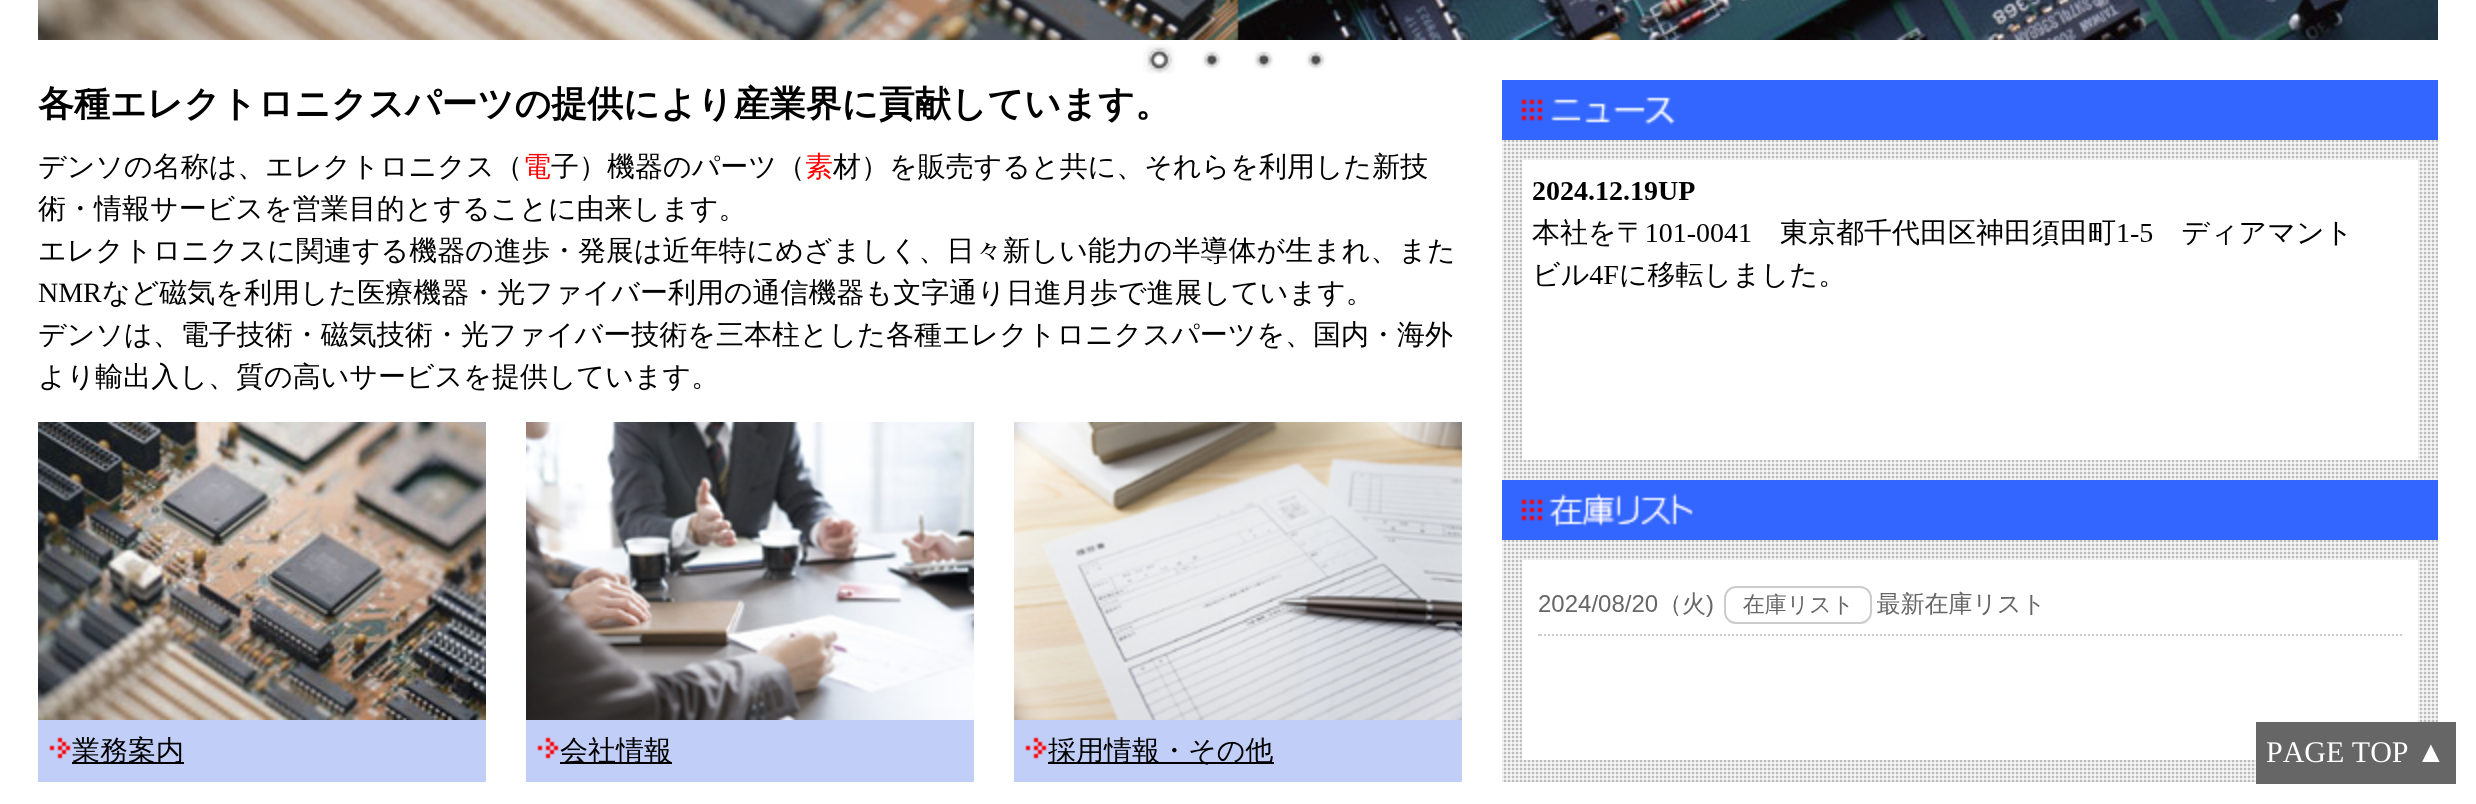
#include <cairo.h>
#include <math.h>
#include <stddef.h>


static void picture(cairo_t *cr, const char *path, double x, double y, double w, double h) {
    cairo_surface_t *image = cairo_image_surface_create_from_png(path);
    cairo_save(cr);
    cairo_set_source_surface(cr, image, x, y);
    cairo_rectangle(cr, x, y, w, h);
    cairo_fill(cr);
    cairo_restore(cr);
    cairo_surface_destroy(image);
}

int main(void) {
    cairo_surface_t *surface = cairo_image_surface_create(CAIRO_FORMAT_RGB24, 2476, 804);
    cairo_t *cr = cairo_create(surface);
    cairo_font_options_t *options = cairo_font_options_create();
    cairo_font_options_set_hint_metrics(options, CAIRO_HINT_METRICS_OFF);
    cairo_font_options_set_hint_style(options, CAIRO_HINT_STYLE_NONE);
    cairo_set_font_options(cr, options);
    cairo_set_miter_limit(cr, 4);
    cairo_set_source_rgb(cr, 1, 1, 1);
    cairo_paint(cr);
    picture(cr, "img1.png", 38, 0, 2400, 74);
    cairo_select_font_face(cr, "WenQuanYi Zen Hei", CAIRO_FONT_SLANT_NORMAL, CAIRO_FONT_WEIGHT_BOLD);
    cairo_set_font_size(cr, 36);
    cairo_set_source_rgb(cr, 0, 0, 0);
    cairo_move_to(cr, 38, 116);
    cairo_show_text(cr, "各種エレクトロニクスパーツの提供により産業界に貢献しています。");
    cairo_select_font_face(cr, "WenQuanYi Zen Hei Medium", CAIRO_FONT_SLANT_NORMAL, CAIRO_FONT_WEIGHT_NORMAL);
    cairo_set_font_size(cr, 28);
    cairo_move_to(cr, 38, 176);
    cairo_show_text(cr, "デンソの名称は、エレクトロニクス（");
    cairo_set_source_rgb(cr, 1, 0, 0);
    cairo_move_to(cr, 523, 176);
    cairo_show_text(cr, "電");
    cairo_set_source_rgb(cr, 0, 0, 0);
    cairo_move_to(cr, 551, 176);
    cairo_show_text(cr, "子）機器のパーツ（");
    cairo_set_source_rgb(cr, 1, 0, 0);
    cairo_move_to(cr, 805, 176);
    cairo_show_text(cr, "素");
    cairo_set_source_rgb(cr, 0, 0, 0);
    cairo_move_to(cr, 833, 176);
    cairo_show_text(cr, "材）を販売すると共に、それらを利用した新技");
    cairo_move_to(cr, 38, 218);
    cairo_show_text(cr, "術・情報サービスを営業目的とすることに由来します。");
    cairo_move_to(cr, 38, 260);
    cairo_show_text(cr, "エレクトロニクスに関連する機器の進歩・発展は近年特にめざましく、日々新しい能力の半導体が生まれ、また");
    cairo_select_font_face(cr, "Liberation Serif", CAIRO_FONT_SLANT_NORMAL, CAIRO_FONT_WEIGHT_NORMAL);
    cairo_move_to(cr, 38, 302);
    cairo_show_text(cr, "NMR");
    cairo_select_font_face(cr, "WenQuanYi Zen Hei Medium", CAIRO_FONT_SLANT_NORMAL, CAIRO_FONT_WEIGHT_NORMAL);
    cairo_move_to(cr, 102, 302);
    cairo_show_text(cr, "など磁気を利用した医療機器・光ファイバー利用の通信機器も文字通り日進月歩で進展しています。");
    cairo_move_to(cr, 38, 344);
    cairo_show_text(cr, "デンソは、電子技術・磁気技術・光ファイバー技術を三本柱とした各種エレクトロニクスパーツを、国内・海外");
    cairo_move_to(cr, 38, 386);
    cairo_show_text(cr, "より輸出入し、質の高いサービスを提供しています。");
    cairo_set_source_rgb(cr, 0.757, 0.808, 0.965);
    cairo_rectangle(cr, 38, 720, 448, 62);
    cairo_fill(cr);
    picture(cr, "img2.png", 38, 422, 448, 298);
    picture(cr, "img3.png", 49, 737, 22, 22);
    cairo_set_source_rgb(cr, 0, 0, 0);
    cairo_rectangle(cr, 72, 762, 112, 2);
    cairo_fill(cr);
    cairo_move_to(cr, 72, 760);
    cairo_show_text(cr, "業務案内");
    cairo_set_source_rgb(cr, 0.757, 0.808, 0.965);
    cairo_rectangle(cr, 526, 720, 448, 62);
    cairo_fill(cr);
    picture(cr, "img4.png", 526, 422, 448, 298);
    picture(cr, "img3.png", 537, 737, 22, 22);
    cairo_set_source_rgb(cr, 0, 0, 0);
    cairo_rectangle(cr, 560, 762, 112, 2);
    cairo_fill(cr);
    cairo_move_to(cr, 560, 760);
    cairo_show_text(cr, "会社情報");
    cairo_set_source_rgb(cr, 0.757, 0.808, 0.965);
    cairo_rectangle(cr, 1014, 720, 448, 62);
    cairo_fill(cr);
    picture(cr, "img5.png", 1014, 422, 448, 298);
    picture(cr, "img3.png", 1025, 737, 22, 22);
    cairo_set_source_rgb(cr, 0, 0, 0);
    cairo_rectangle(cr, 1048, 762, 226, 2);
    cairo_fill(cr);
    cairo_move_to(cr, 1048, 760);
    cairo_show_text(cr, "採用情報・その他");
    picture(cr, "img6.png", 1502, 140, 936, 642);
    picture(cr, "img7.png", 1502, 80, 936, 60);
    cairo_set_source_rgb(cr, 1, 1, 1);
    cairo_rectangle(cr, 1522, 160, 896, 300);
    cairo_fill(cr);
    picture(cr, "img8.png", 1532, 182, 814, 107);
    picture(cr, "img9.png", 1502, 480, 936, 60);
    cairo_rectangle(cr, 1522, 560, 896, 200);
    cairo_fill(cr);
    picture(cr, "img10.png", 1538, 586, 864, 50);
    cairo_set_source_rgb(cr, 0.4, 0.4, 0.4);
    cairo_rectangle(cr, 2256, 722, 200, 62);
    cairo_fill(cr);
    cairo_select_font_face(cr, "Liberation Serif", CAIRO_FONT_SLANT_NORMAL, CAIRO_FONT_WEIGHT_NORMAL);
    cairo_set_font_size(cr, 30);
    cairo_set_source_rgb(cr, 1, 1, 1);
    cairo_move_to(cr, 2266, 762);
    cairo_show_text(cr, "PAGE TOP ▲");
    cairo_surface_write_to_png(surface, "page.png");
    cairo_font_options_destroy(options);
    cairo_destroy(cr);
    cairo_surface_destroy(surface);
    return 0;
}
